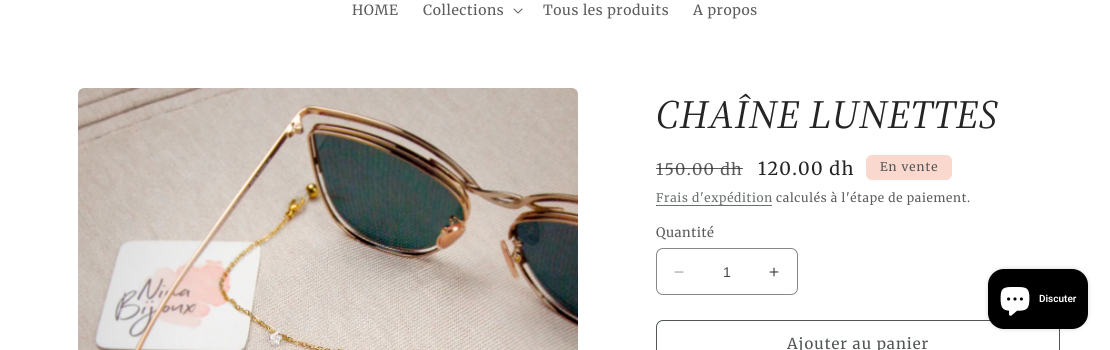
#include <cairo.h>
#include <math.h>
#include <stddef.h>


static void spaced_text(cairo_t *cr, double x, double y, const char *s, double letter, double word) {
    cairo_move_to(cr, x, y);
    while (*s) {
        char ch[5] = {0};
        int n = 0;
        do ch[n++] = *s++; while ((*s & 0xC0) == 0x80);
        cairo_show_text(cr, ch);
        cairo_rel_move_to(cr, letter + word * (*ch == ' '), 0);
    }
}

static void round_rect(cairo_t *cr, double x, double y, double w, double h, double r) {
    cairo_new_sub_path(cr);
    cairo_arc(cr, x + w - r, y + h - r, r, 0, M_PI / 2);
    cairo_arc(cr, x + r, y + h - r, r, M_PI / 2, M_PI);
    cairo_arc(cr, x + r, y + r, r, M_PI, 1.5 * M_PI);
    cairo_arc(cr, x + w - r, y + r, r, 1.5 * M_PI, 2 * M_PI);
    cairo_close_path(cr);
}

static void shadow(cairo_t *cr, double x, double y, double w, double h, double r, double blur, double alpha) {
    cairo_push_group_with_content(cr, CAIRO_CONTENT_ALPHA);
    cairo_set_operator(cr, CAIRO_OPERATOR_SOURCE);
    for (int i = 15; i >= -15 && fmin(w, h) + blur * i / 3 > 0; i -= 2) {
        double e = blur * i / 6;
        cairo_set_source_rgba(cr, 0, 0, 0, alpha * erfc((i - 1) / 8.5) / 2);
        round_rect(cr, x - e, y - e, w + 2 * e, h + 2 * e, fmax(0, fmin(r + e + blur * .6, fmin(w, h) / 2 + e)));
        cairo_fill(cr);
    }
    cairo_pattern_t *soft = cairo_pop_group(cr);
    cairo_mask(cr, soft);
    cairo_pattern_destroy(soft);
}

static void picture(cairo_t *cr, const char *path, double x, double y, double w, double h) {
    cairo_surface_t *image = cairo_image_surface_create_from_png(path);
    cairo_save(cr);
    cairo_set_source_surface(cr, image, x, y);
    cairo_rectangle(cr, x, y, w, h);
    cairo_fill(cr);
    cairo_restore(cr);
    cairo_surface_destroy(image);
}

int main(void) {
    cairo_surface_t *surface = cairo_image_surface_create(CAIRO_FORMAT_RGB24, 1110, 350);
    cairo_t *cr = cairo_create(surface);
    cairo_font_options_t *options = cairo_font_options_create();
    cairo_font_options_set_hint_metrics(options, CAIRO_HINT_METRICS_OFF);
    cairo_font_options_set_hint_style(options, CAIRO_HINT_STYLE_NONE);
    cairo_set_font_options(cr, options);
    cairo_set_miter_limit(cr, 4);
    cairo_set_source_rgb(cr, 1, 1, 1);
    cairo_paint(cr);
    cairo_select_font_face(cr, "Merriweather", CAIRO_FONT_SLANT_NORMAL, CAIRO_FONT_WEIGHT_NORMAL);
    cairo_set_font_size(cr, 14);
    cairo_set_source_rgb(cr, 0.361, 0.361, 0.361);
    spaced_text(cr, 352, 15, "HOME", 0.6, 0);
    spaced_text(cr, 423, 15, "Collections", 0.6, 0);
    picture(cr, "img1.png", 513, 8, 10, 6);
    spaced_text(cr, 543, 15, "Tous les produits", 0.6, 0);
    spaced_text(cr, 693, 15, "A propos", 0.6, 0);
    picture(cr, "img2.png", 78, 88, 500, 262);
    cairo_select_font_face(cr, "Source Serif 4", CAIRO_FONT_SLANT_ITALIC, CAIRO_FONT_WEIGHT_NORMAL);
    cairo_set_font_size(cr, 40);
    cairo_set_source_rgb(cr, 0.145, 0.145, 0.145);
    spaced_text(cr, 656, 128, "CHAÎNE LUNETTES", 0.6, 0);
    cairo_select_font_face(cr, "Merriweather", CAIRO_FONT_SLANT_NORMAL, CAIRO_FONT_WEIGHT_NORMAL);
    cairo_set_font_size(cr, 16);
    cairo_set_source_rgb(cr, 0.361, 0.361, 0.361);
    spaced_text(cr, 656, 175, "150.00 dh", 1.25, 0);
    cairo_set_source_rgba(cr, 0.145, 0.145, 0.145, 0.75);
    cairo_rectangle(cr, 656, 168, 87, 1);
    cairo_fill(cr);
    cairo_set_font_size(cr, 18);
    cairo_set_source_rgb(cr, 0.145, 0.145, 0.145);
    spaced_text(cr, 758, 175, "120.00 dh", 1.25, 0);
    cairo_set_source_rgb(cr, 0.98, 0.847, 0.808);
    round_rect(cr, 866.5, 155.5, 85, 24, 5.5);
    cairo_fill_preserve(cr);
    cairo_set_line_width(cr, 1);
    cairo_stroke(cr);
    cairo_set_font_size(cr, 12);
    cairo_set_source_rgb(cr, 0.314, 0.337, 0.333);
    spaced_text(cr, 880, 171, "En vente", 1, 0);
    cairo_set_source_rgb(cr, 0.416, 0.435, 0.435);
    spaced_text(cr, 656, 202, "Frais d'expédition", 0.7, 0);
    cairo_rectangle(cr, 656, 205, 116, 1);
    cairo_fill(cr);
    cairo_set_source_rgb(cr, 0.361, 0.361, 0.361);
    spaced_text(cr, 776, 202, "calculés à l'étape de paiement.", 0.7, 0);
    cairo_set_font_size(cr, 13);
    spaced_text(cr, 656, 237, "Quantité", 0.5, 0);
    picture(cr, "img3.png", 674, 271, 10, 2);
    picture(cr, "img4.png", 769, 267, 10, 10);
    round_rect(cr, 656.5, 248.5, 141, 46, 6.5);
    cairo_set_source_rgb(cr, 0.529, 0.529, 0.529);
    cairo_stroke(cr);
    cairo_select_font_face(cr, "Liberation Sans", CAIRO_FONT_SLANT_NORMAL, CAIRO_FONT_WEIGHT_NORMAL);
    cairo_set_font_size(cr, 14);
    cairo_set_source_rgb(cr, 0.275, 0.275, 0.275);
    cairo_move_to(cr, 723, 277);
    cairo_show_text(cr, "1");
    round_rect(cr, 656.5, 320.5, 403, 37, 6.5);
    cairo_set_source_rgb(cr, 0.314, 0.337, 0.333);
    cairo_stroke(cr);
    cairo_select_font_face(cr, "Merriweather", CAIRO_FONT_SLANT_NORMAL, CAIRO_FONT_WEIGHT_NORMAL);
    cairo_set_font_size(cr, 15);
    spaced_text(cr, 787, 349, "Ajouter au panier", 1, 0);
    cairo_set_source_rgb(cr, 0, 0, 0);
    shadow(cr, 988, 269, 100, 60, 16, 2.5, 0.15);
    cairo_set_source_rgb(cr, 0, 0, 0);
    round_rect(cr, 988, 269, 100, 60, 16);
    cairo_fill(cr);
    picture(cr, "img5.png", 1000, 287, 30, 29);
    cairo_select_font_face(cr, "Roboto SemiBold", CAIRO_FONT_SLANT_NORMAL, CAIRO_FONT_WEIGHT_NORMAL);
    cairo_set_font_size(cr, 10);
    cairo_set_source_rgb(cr, 1, 1, 1);
    cairo_move_to(cr, 1039, 302);
    cairo_show_text(cr, "Discuter");
    cairo_surface_write_to_png(surface, "page.png");
    cairo_font_options_destroy(options);
    cairo_destroy(cr);
    cairo_surface_destroy(surface);
    return 0;
}
